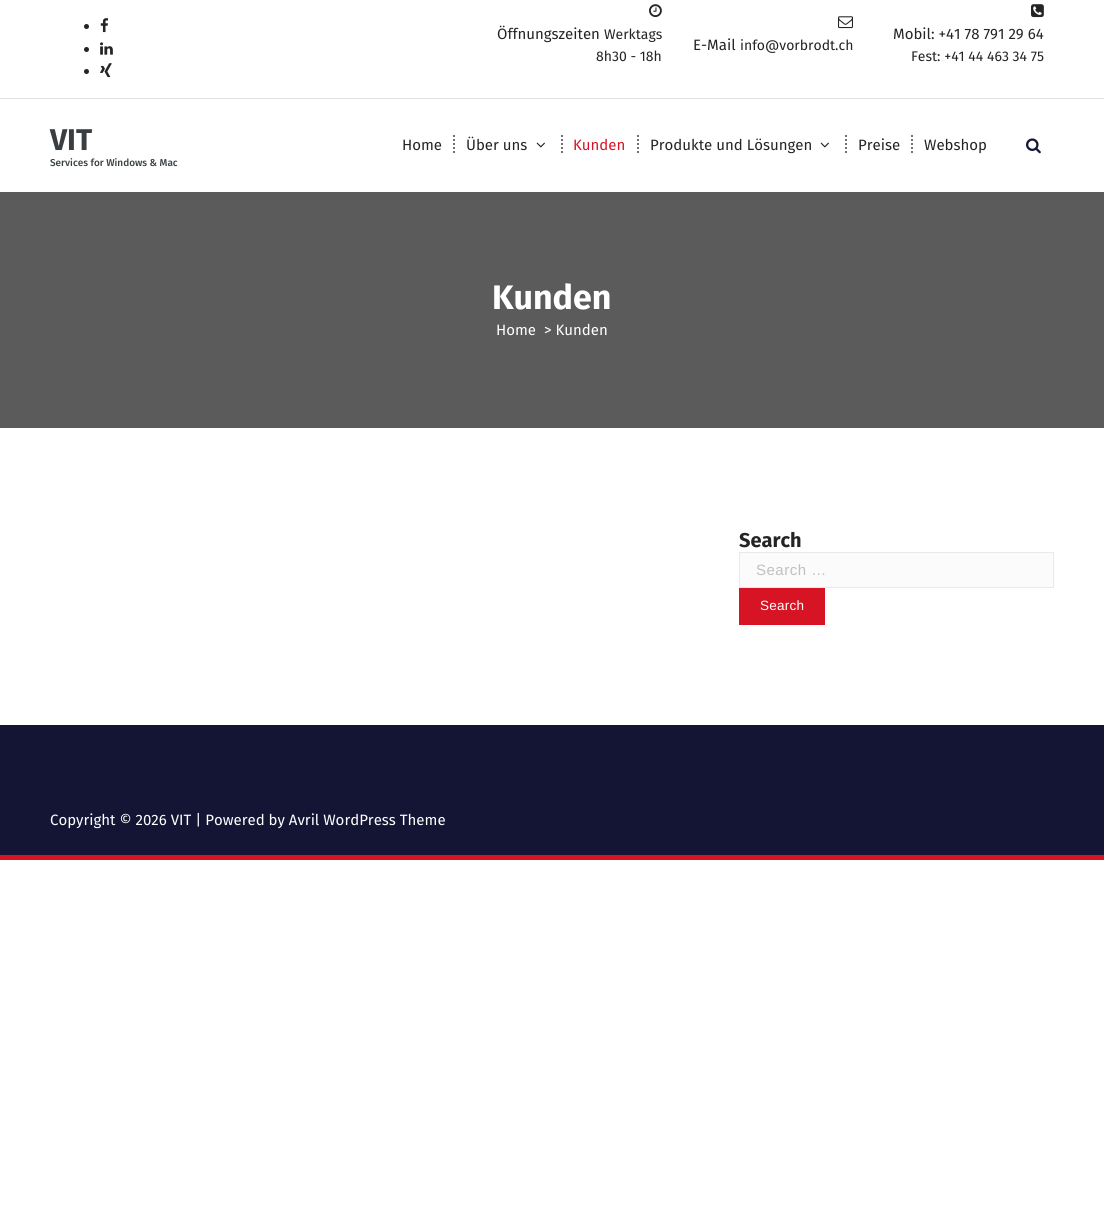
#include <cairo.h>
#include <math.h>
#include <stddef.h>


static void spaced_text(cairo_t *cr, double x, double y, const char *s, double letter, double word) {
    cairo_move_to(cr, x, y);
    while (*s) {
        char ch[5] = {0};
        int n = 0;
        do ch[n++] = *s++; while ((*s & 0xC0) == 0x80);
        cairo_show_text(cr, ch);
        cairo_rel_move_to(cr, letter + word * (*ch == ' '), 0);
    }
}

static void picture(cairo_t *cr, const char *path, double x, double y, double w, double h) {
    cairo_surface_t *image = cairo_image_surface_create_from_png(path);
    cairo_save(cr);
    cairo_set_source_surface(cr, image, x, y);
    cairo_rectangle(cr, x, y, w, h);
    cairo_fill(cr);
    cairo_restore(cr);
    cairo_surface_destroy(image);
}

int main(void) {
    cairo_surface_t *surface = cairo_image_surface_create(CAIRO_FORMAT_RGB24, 1104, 1219);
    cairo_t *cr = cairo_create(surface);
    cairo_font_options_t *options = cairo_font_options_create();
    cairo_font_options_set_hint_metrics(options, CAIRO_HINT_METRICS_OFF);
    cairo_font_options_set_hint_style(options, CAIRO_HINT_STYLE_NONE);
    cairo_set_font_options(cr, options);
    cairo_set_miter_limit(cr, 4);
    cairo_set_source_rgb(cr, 1, 1, 1);
    cairo_paint(cr);
    cairo_set_source_rgb(cr, 0.882, 0.882, 0.882);
    cairo_rectangle(cr, 0, 98, 1104, 1);
    cairo_fill(cr);
    cairo_set_source_rgb(cr, 0.141, 0.141, 0.141);
    cairo_arc(cr, 86.5, 26.5, 2.5, 0, 2 * M_PI);
    cairo_fill(cr);
    picture(cr, "img1.png", 100, 18, 9, 15);
    cairo_arc(cr, 86.5, 49.5, 2.5, 0, 2 * M_PI);
    cairo_fill(cr);
    picture(cr, "img2.png", 100, 42, 13, 13);
    cairo_arc(cr, 86.5, 71.5, 2.5, 0, 2 * M_PI);
    cairo_fill(cr);
    picture(cr, "img3.png", 100, 63, 12, 15);
    picture(cr, "img4.png", 649, 4, 13, 14);
    cairo_select_font_face(cr, "Fira Sans", CAIRO_FONT_SLANT_NORMAL, CAIRO_FONT_WEIGHT_NORMAL);
    cairo_set_font_size(cr, 15);
    cairo_move_to(cr, 497, 39);
    cairo_show_text(cr, "Öffnungszeiten");
    cairo_set_font_size(cr, 14);
    cairo_move_to(cr, 604, 39);
    cairo_show_text(cr, "Werktags");
    cairo_move_to(cr, 596, 61);
    cairo_show_text(cr, "8h30 - 18h");
    picture(cr, "img5.png", 838, 16, 15, 13);
    cairo_set_font_size(cr, 15);
    cairo_move_to(cr, 693, 50);
    cairo_show_text(cr, "E-Mail");
    cairo_set_font_size(cr, 14);
    cairo_move_to(cr, 740, 50);
    cairo_show_text(cr, "info@vorbrodt.ch");
    picture(cr, "img6.png", 1031, 4, 13, 14);
    cairo_set_font_size(cr, 15);
    cairo_move_to(cr, 893, 39);
    cairo_show_text(cr, "Mobil: +41 78 791 29 64");
    cairo_set_font_size(cr, 14);
    cairo_move_to(cr, 911, 61);
    cairo_show_text(cr, "Fest: +41 44 463 34 75");
    cairo_select_font_face(cr, "Fira Sans", CAIRO_FONT_SLANT_NORMAL, CAIRO_FONT_WEIGHT_BOLD);
    cairo_set_font_size(cr, 30);
    cairo_set_source_rgb(cr, 0.22, 0.243, 0.255);
    cairo_move_to(cr, 50, 150);
    cairo_show_text(cr, "VIT");
    cairo_select_font_face(cr, "Fira Sans Medium", CAIRO_FONT_SLANT_NORMAL, CAIRO_FONT_WEIGHT_NORMAL);
    cairo_set_font_size(cr, 10);
    cairo_move_to(cr, 50, 166);
    cairo_show_text(cr, "Services for Windows & Mac");
    cairo_select_font_face(cr, "Fira Sans", CAIRO_FONT_SLANT_NORMAL, CAIRO_FONT_WEIGHT_NORMAL);
    cairo_set_font_size(cr, 15);
    cairo_set_source_rgb(cr, 0.141, 0.141, 0.141);
    cairo_move_to(cr, 402, 150);
    cairo_show_text(cr, "Home");
    cairo_new_path(cr);
    cairo_move_to(cr, 454, 135);
    cairo_line_to(cr, 454, 155);
    cairo_set_source_rgb(cr, 0.443, 0.443, 0.443);
    cairo_set_dash(cr, (double[]){2, 2}, 2, 0);
    cairo_stroke(cr);
    cairo_set_source_rgb(cr, 0.141, 0.141, 0.141);
    cairo_move_to(cr, 466, 150);
    cairo_show_text(cr, "Über uns");
    picture(cr, "img7.png", 536, 142, 9, 6);
    cairo_new_path(cr);
    cairo_move_to(cr, 562, 135);
    cairo_line_to(cr, 562, 155);
    cairo_set_source_rgb(cr, 0.443, 0.443, 0.443);
    cairo_stroke(cr);
    cairo_set_source_rgb(cr, 0.839, 0.082, 0.137);
    cairo_move_to(cr, 573, 150);
    cairo_show_text(cr, "Kunden");
    cairo_new_path(cr);
    cairo_move_to(cr, 638, 135);
    cairo_line_to(cr, 638, 155);
    cairo_set_source_rgb(cr, 0.443, 0.443, 0.443);
    cairo_stroke(cr);
    cairo_set_source_rgb(cr, 0.141, 0.141, 0.141);
    cairo_move_to(cr, 650, 150);
    cairo_show_text(cr, "Produkte und Lösungen");
    picture(cr, "img7.png", 820, 142, 9, 6);
    cairo_new_path(cr);
    cairo_move_to(cr, 846, 135);
    cairo_line_to(cr, 846, 155);
    cairo_set_source_rgb(cr, 0.443, 0.443, 0.443);
    cairo_stroke(cr);
    cairo_set_source_rgb(cr, 0.141, 0.141, 0.141);
    cairo_move_to(cr, 858, 150);
    cairo_show_text(cr, "Preise");
    cairo_new_path(cr);
    cairo_move_to(cr, 912, 135);
    cairo_line_to(cr, 912, 155);
    cairo_set_source_rgb(cr, 0.443, 0.443, 0.443);
    cairo_stroke(cr);
    cairo_set_source_rgb(cr, 0.141, 0.141, 0.141);
    cairo_move_to(cr, 924, 150);
    cairo_show_text(cr, "Webshop");
    picture(cr, "img8.png", 1026, 138, 15, 16);
    cairo_set_source_rgb(cr, 0.357, 0.357, 0.357);
    cairo_rectangle(cr, 0, 192, 1104, 236);
    cairo_fill(cr);
    cairo_select_font_face(cr, "Fira Sans", CAIRO_FONT_SLANT_NORMAL, CAIRO_FONT_WEIGHT_BOLD);
    cairo_set_font_size(cr, 34);
    cairo_set_source_rgb(cr, 1, 1, 1);
    cairo_move_to(cr, 492, 309);
    cairo_show_text(cr, "Kunden");
    cairo_select_font_face(cr, "Fira Sans", CAIRO_FONT_SLANT_NORMAL, CAIRO_FONT_WEIGHT_NORMAL);
    cairo_set_font_size(cr, 15);
    cairo_move_to(cr, 496, 335);
    cairo_show_text(cr, "Home");
    cairo_move_to(cr, 544, 335);
    cairo_show_text(cr, "> Kunden");
    cairo_select_font_face(cr, "Fira Sans", CAIRO_FONT_SLANT_NORMAL, CAIRO_FONT_WEIGHT_BOLD);
    cairo_set_font_size(cr, 20);
    cairo_set_source_rgb(cr, 0.141, 0.141, 0.141);
    cairo_move_to(cr, 739, 547);
    cairo_show_text(cr, "Search");
    cairo_set_source_rgb(cr, 0.984, 0.984, 0.984);
    cairo_rectangle(cr, 739.5, 552.5, 314, 35);
    cairo_fill_preserve(cr);
    cairo_set_source_rgb(cr, 0.914, 0.914, 0.918);
    cairo_set_line_width(cr, 1);
    cairo_set_dash(cr, NULL, 0, 0);
    cairo_stroke(cr);
    cairo_select_font_face(cr, "Liberation Sans", CAIRO_FONT_SLANT_NORMAL, CAIRO_FONT_WEIGHT_NORMAL);
    cairo_set_font_size(cr, 15);
    cairo_set_source_rgb(cr, 0.753, 0.753, 0.753);
    spaced_text(cr, 756, 575, "Search …", 0.5, 0);
    cairo_set_source_rgb(cr, 0.839, 0.082, 0.137);
    cairo_rectangle(cr, 739, 588, 86, 37);
    cairo_fill(cr);
    cairo_set_font_size(cr, 13.5);
    cairo_set_source_rgb(cr, 1, 1, 1);
    spaced_text(cr, 760, 610, "Search", 0.25, 0);
    cairo_set_source_rgb(cr, 0.082, 0.082, 0.208);
    cairo_rectangle(cr, 0, 725, 1104, 130);
    cairo_fill(cr);
    cairo_set_source_rgb(cr, 0.839, 0.082, 0.137);
    cairo_rectangle(cr, 0, 855, 1104, 5);
    cairo_fill(cr);
    cairo_select_font_face(cr, "Fira Sans", CAIRO_FONT_SLANT_NORMAL, CAIRO_FONT_WEIGHT_NORMAL);
    cairo_set_font_size(cr, 15);
    cairo_set_source_rgb(cr, 1, 1, 1);
    cairo_move_to(cr, 50, 825);
    cairo_show_text(cr, "Copyright © 2026 VIT | Powered by Avril WordPress Theme");
    cairo_surface_write_to_png(surface, "page.png");
    cairo_font_options_destroy(options);
    cairo_destroy(cr);
    cairo_surface_destroy(surface);
    return 0;
}
